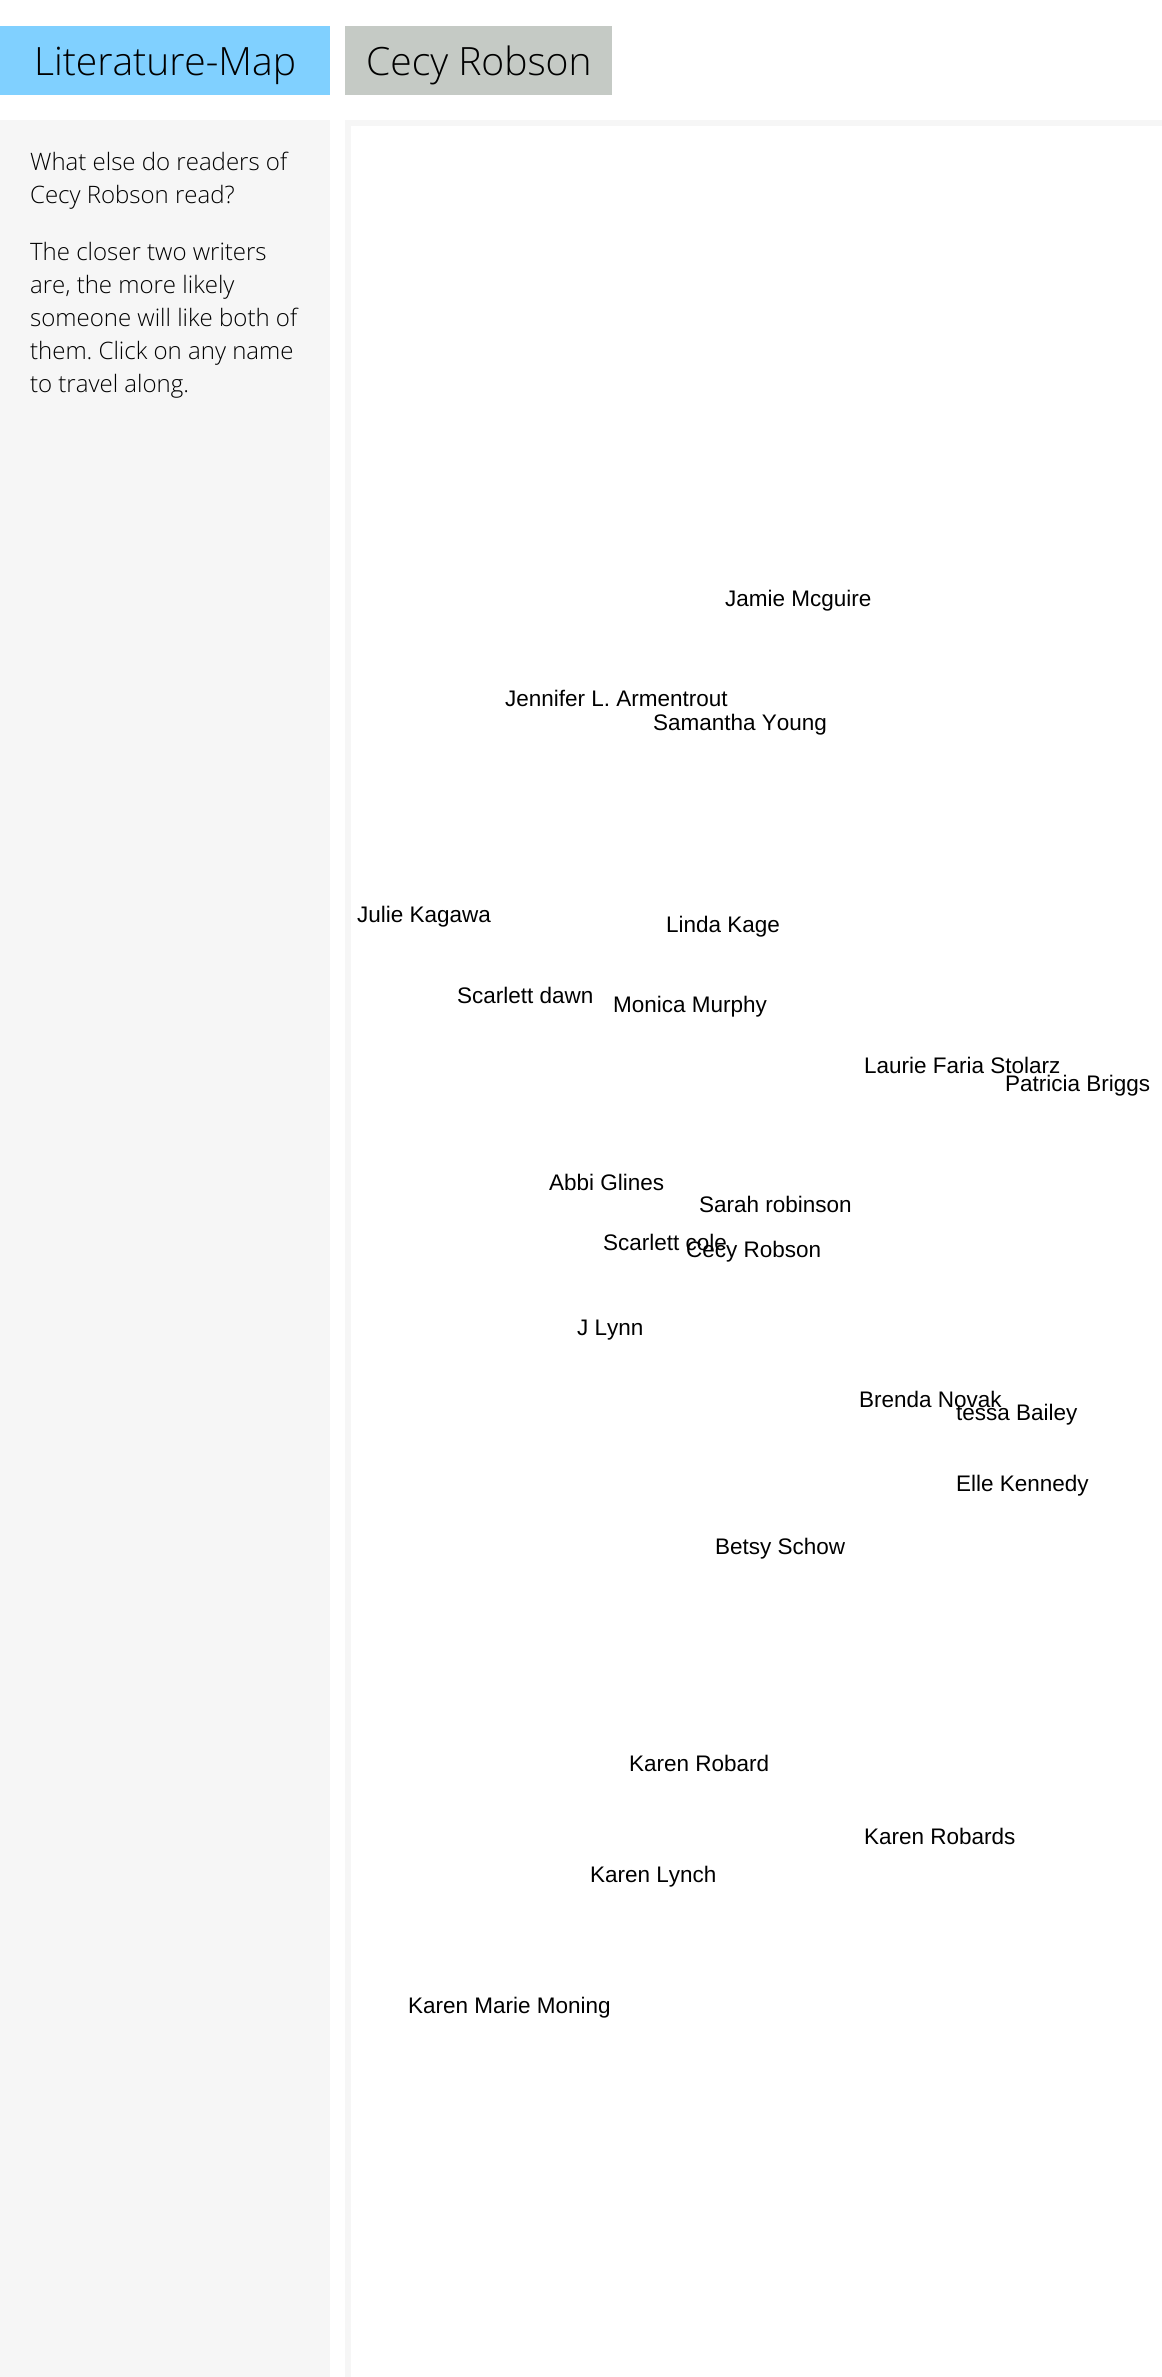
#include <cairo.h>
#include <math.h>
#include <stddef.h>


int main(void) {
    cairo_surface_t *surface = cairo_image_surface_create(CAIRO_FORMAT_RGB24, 1162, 2377);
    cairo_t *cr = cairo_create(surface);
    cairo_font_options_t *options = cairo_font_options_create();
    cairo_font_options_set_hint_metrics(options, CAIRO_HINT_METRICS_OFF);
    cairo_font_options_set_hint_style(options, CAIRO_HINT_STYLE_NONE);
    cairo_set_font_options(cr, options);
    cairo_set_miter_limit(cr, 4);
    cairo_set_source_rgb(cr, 1, 1, 1);
    cairo_paint(cr);
    cairo_set_source_rgb(cr, 0.502, 0.816, 1);
    cairo_rectangle(cr, 0, 26, 330, 69);
    cairo_fill(cr);
    cairo_select_font_face(cr, "Open Sans Light", CAIRO_FONT_SLANT_NORMAL, CAIRO_FONT_WEIGHT_NORMAL);
    cairo_set_font_size(cr, 39);
    cairo_set_source_rgb(cr, 0, 0, 0);
    cairo_move_to(cr, 34, 75);
    cairo_show_text(cr, "Literature-Map");
    cairo_set_source_rgb(cr, 0.773, 0.792, 0.773);
    cairo_rectangle(cr, 345, 26, 267, 69);
    cairo_fill(cr);
    cairo_set_source_rgb(cr, 0, 0, 0);
    cairo_move_to(cr, 366, 75);
    cairo_show_text(cr, "Cecy Robson");
    cairo_set_source_rgb(cr, 0.961, 0.961, 0.961);
    cairo_rectangle(cr, 0, 120, 330, 2257);
    cairo_fill(cr);
    cairo_set_font_size(cr, 24);
    cairo_set_source_rgb(cr, 0, 0, 0);
    cairo_move_to(cr, 30, 170);
    cairo_show_text(cr, "What else do readers of");
    cairo_move_to(cr, 30, 203);
    cairo_show_text(cr, "Cecy Robson read?");
    cairo_move_to(cr, 30, 260);
    cairo_show_text(cr, "The closer two writers");
    cairo_move_to(cr, 30, 293);
    cairo_show_text(cr, "are, the more likely");
    cairo_move_to(cr, 30, 326);
    cairo_show_text(cr, "someone will like both of");
    cairo_move_to(cr, 30, 359);
    cairo_show_text(cr, "them. Click on any name");
    cairo_move_to(cr, 30, 392);
    cairo_show_text(cr, "to travel along.");
    cairo_save(cr);
    cairo_rectangle(cr, 345, 120, 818, 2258);
    cairo_clip(cr);
    cairo_set_source_rgb(cr, 0.961, 0.961, 0.961);
    cairo_set_fill_rule(cr, CAIRO_FILL_RULE_EVEN_ODD);
    cairo_new_path(cr);
    cairo_move_to(cr, 196, -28);
    cairo_line_to(cr, 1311, -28);
    cairo_line_to(cr, 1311, 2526);
    cairo_line_to(cr, 196, 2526);
    cairo_close_path(cr);
    cairo_move_to(cr, 351, 126);
    cairo_line_to(cr, 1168, 126);
    cairo_line_to(cr, 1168, 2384);
    cairo_line_to(cr, 351, 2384);
    cairo_close_path(cr);
    cairo_fill(cr);
    cairo_restore(cr);
    cairo_select_font_face(cr, "Liberation Sans", CAIRO_FONT_SLANT_NORMAL, CAIRO_FONT_WEIGHT_NORMAL);
    cairo_set_font_size(cr, 22.5);
    cairo_move_to(cr, 725, 606);
    cairo_show_text(cr, "Jamie Mcguire");
    cairo_move_to(cr, 505, 706);
    cairo_show_text(cr, "Jennifer L. Armentrout");
    cairo_move_to(cr, 653, 730);
    cairo_show_text(cr, "Samantha Young");
    cairo_move_to(cr, 357, 922);
    cairo_show_text(cr, "Julie Kagawa");
    cairo_move_to(cr, 666, 932);
    cairo_show_text(cr, "Linda Kage");
    cairo_move_to(cr, 457, 1003);
    cairo_show_text(cr, "Scarlett dawn");
    cairo_move_to(cr, 613, 1012);
    cairo_show_text(cr, "Monica Murphy");
    cairo_move_to(cr, 864, 1073);
    cairo_show_text(cr, "Laurie Faria Stolarz");
    cairo_move_to(cr, 1005, 1091);
    cairo_show_text(cr, "Patricia Briggs");
    cairo_move_to(cr, 549, 1190);
    cairo_show_text(cr, "Abbi Glines");
    cairo_move_to(cr, 699, 1212);
    cairo_show_text(cr, "Sarah robinson");
    cairo_move_to(cr, 686, 1257);
    cairo_show_text(cr, "Cecy Robson");
    cairo_move_to(cr, 603, 1250);
    cairo_show_text(cr, "Scarlett cole");
    cairo_move_to(cr, 577, 1335);
    cairo_show_text(cr, "J Lynn");
    cairo_move_to(cr, 859, 1407);
    cairo_show_text(cr, "Brenda Novak");
    cairo_move_to(cr, 956, 1420);
    cairo_show_text(cr, "tessa Bailey");
    cairo_move_to(cr, 956, 1491);
    cairo_show_text(cr, "Elle Kennedy");
    cairo_move_to(cr, 715, 1554);
    cairo_show_text(cr, "Betsy Schow");
    cairo_move_to(cr, 629, 1771);
    cairo_show_text(cr, "Karen Robard");
    cairo_move_to(cr, 864, 1844);
    cairo_show_text(cr, "Karen Robards");
    cairo_move_to(cr, 590, 1882);
    cairo_show_text(cr, "Karen Lynch");
    cairo_move_to(cr, 408, 2013);
    cairo_show_text(cr, "Karen Marie Moning");
    cairo_surface_write_to_png(surface, "page.png");
    cairo_font_options_destroy(options);
    cairo_destroy(cr);
    cairo_surface_destroy(surface);
    return 0;
}
